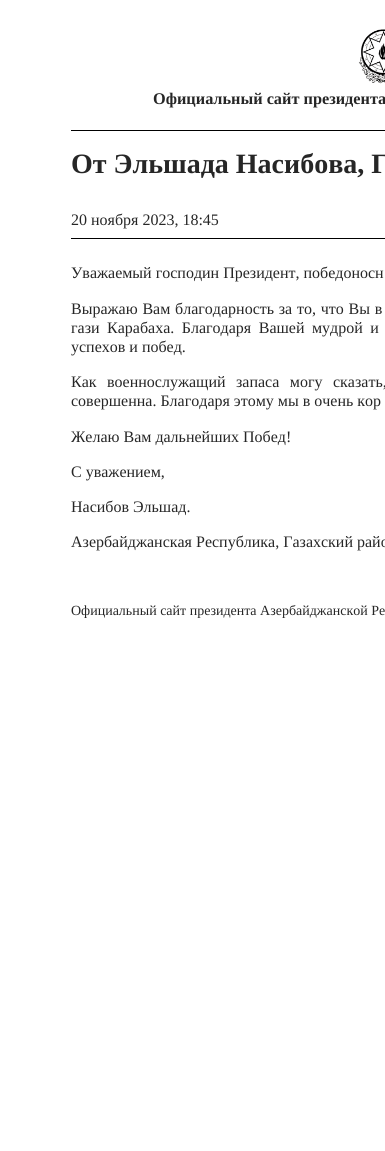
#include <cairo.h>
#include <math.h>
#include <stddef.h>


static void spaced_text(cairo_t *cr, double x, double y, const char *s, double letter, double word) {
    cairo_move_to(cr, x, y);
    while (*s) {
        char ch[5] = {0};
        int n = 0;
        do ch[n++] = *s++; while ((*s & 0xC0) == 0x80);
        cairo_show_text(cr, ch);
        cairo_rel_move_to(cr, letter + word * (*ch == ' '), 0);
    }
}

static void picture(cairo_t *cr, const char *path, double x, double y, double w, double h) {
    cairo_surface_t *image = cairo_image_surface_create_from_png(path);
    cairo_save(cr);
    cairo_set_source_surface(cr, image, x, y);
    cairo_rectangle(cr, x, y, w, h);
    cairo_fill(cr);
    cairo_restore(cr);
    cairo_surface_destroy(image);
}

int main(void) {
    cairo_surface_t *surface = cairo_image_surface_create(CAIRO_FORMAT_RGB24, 385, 1151);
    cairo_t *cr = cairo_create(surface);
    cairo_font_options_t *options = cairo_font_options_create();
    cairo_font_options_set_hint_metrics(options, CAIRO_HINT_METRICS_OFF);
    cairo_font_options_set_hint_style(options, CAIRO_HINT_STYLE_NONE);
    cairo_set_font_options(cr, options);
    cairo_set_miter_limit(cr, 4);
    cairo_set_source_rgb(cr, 1, 1, 1);
    cairo_paint(cr);
    picture(cr, "img1.png", 358, 29, 27, 55);
    cairo_select_font_face(cr, "Liberation Serif", CAIRO_FONT_SLANT_NORMAL, CAIRO_FONT_WEIGHT_BOLD);
    cairo_set_font_size(cr, 16.3);
    cairo_set_source_rgb(cr, 0.149, 0.149, 0.149);
    cairo_move_to(cr, 153, 104);
    cairo_show_text(cr, "Официальный сайт президента");
    cairo_set_source_rgb(cr, 0, 0, 0);
    cairo_rectangle(cr, 71, 130, 314, 1);
    cairo_fill(cr);
    cairo_set_font_size(cr, 28);
    cairo_set_source_rgb(cr, 0.149, 0.149, 0.149);
    cairo_move_to(cr, 71, 173);
    cairo_show_text(cr, "От Эльшада Насибова, Г");
    cairo_set_source_rgb(cr, 0, 0, 0);
    cairo_rectangle(cr, 71, 238, 314, 1);
    cairo_fill(cr);
    cairo_select_font_face(cr, "Liberation Serif", CAIRO_FONT_SLANT_NORMAL, CAIRO_FONT_WEIGHT_NORMAL);
    cairo_set_font_size(cr, 16);
    cairo_set_source_rgb(cr, 0.149, 0.149, 0.149);
    cairo_move_to(cr, 71, 225);
    cairo_show_text(cr, "20 ноября 2023, 18:45");
    cairo_move_to(cr, 71, 278);
    cairo_show_text(cr, "Уважаемый господин Президент, победоносн");
    spaced_text(cr, 71, 314, "Выражаю Вам благодарность за то, что Вы в", 0, 0.75);
    spaced_text(cr, 71, 333, "гази Карабаха. Благодаря Вашей мудрой и", 0, 3.5);
    cairo_move_to(cr, 71, 352);
    cairo_show_text(cr, "успехов и побед.");
    spaced_text(cr, 71, 387, "Как военнослужащий запаса могу сказать,", 0, 6.5);
    cairo_move_to(cr, 71, 406);
    cairo_show_text(cr, "совершенна. Благодаря этому мы в очень кор");
    cairo_move_to(cr, 71, 442);
    cairo_show_text(cr, "Желаю Вам дальнейших Побед!");
    cairo_move_to(cr, 71, 477);
    cairo_show_text(cr, "С уважением,");
    cairo_move_to(cr, 71, 512);
    cairo_show_text(cr, "Насибов Эльшад.");
    cairo_move_to(cr, 71, 547);
    cairo_show_text(cr, "Азербайджанская Республика, Газахский райо");
    cairo_set_font_size(cr, 14);
    cairo_move_to(cr, 71, 615);
    cairo_show_text(cr, "Официальный сайт президента Азербайджанской Ре");
    cairo_surface_write_to_png(surface, "page.png");
    cairo_font_options_destroy(options);
    cairo_destroy(cr);
    cairo_surface_destroy(surface);
    return 0;
}
